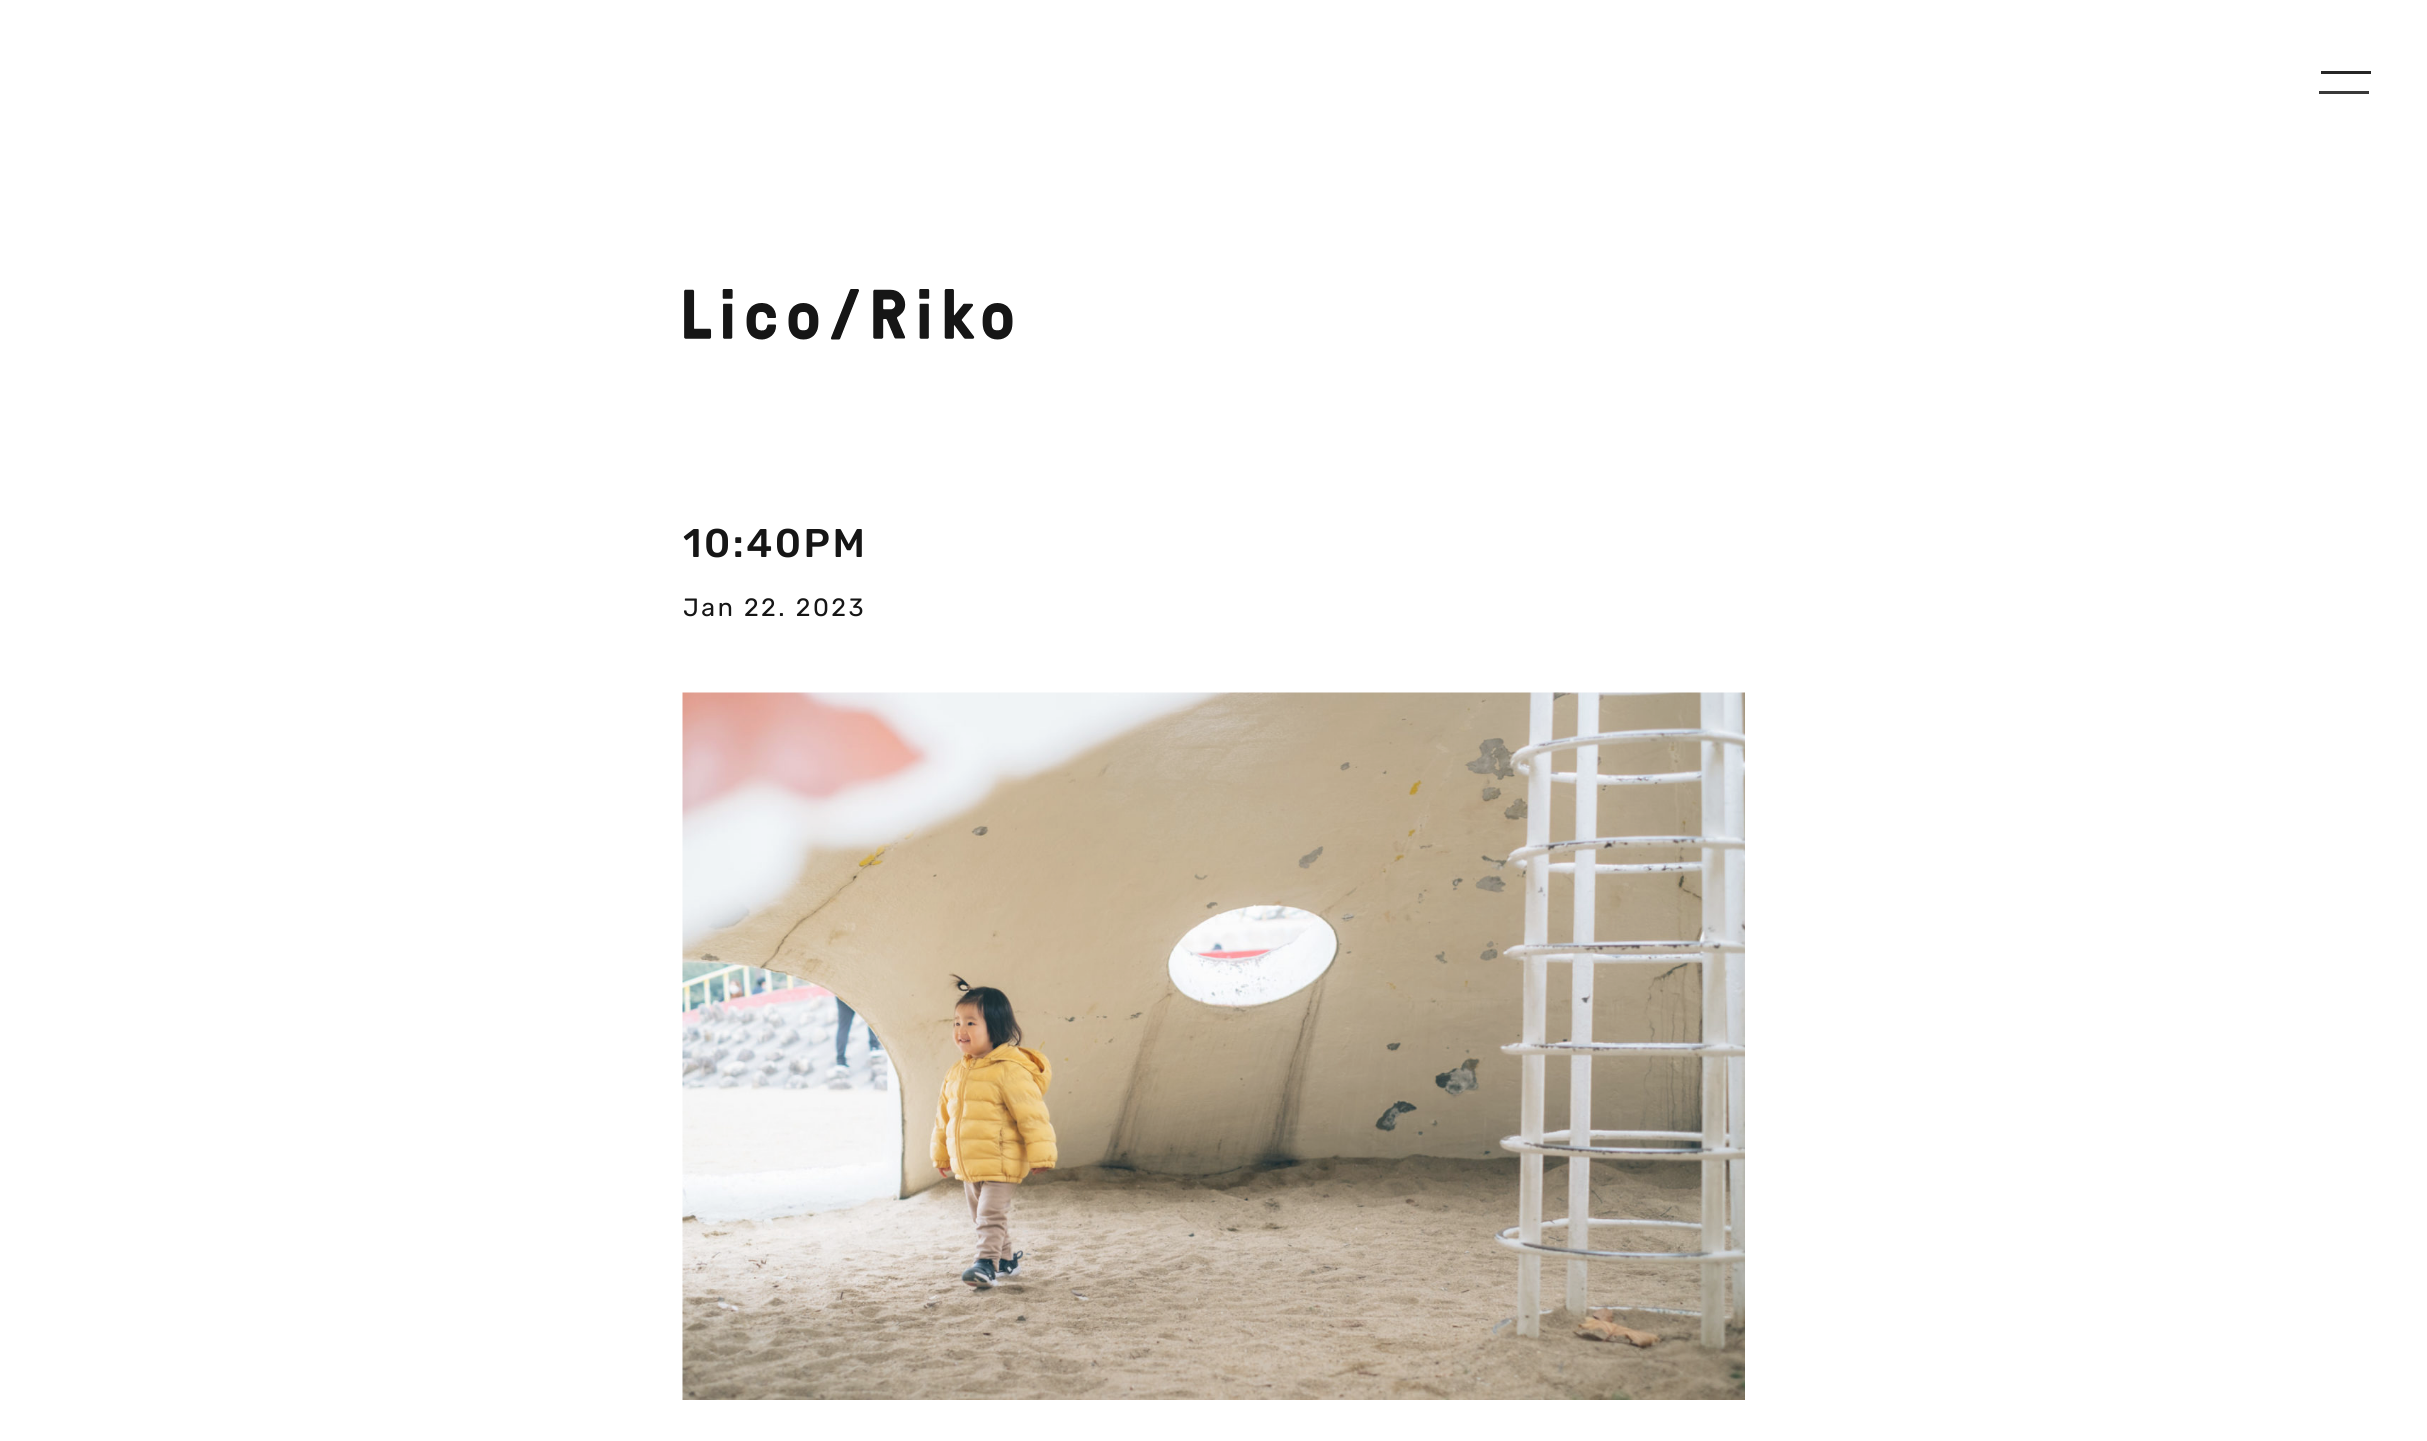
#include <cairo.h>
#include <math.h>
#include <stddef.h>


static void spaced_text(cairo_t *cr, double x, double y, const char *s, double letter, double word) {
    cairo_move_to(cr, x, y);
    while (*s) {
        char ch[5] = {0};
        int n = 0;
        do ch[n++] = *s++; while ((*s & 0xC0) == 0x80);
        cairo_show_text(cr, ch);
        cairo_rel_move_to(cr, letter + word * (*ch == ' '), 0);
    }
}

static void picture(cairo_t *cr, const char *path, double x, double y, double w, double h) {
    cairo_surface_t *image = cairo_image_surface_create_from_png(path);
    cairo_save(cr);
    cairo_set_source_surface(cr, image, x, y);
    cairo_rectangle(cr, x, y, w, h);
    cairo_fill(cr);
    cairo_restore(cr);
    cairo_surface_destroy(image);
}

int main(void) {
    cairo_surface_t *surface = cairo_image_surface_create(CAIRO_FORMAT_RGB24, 2427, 1441);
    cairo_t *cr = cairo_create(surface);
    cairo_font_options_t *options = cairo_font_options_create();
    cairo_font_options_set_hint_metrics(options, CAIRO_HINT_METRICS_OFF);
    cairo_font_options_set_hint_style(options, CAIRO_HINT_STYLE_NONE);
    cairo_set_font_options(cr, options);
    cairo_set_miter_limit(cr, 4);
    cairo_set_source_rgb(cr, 1, 1, 1);
    cairo_paint(cr);
    cairo_set_source_rgb(cr, 0.149, 0.149, 0.149);
    cairo_rectangle(cr, 2321, 71, 50, 3);
    cairo_fill(cr);
    cairo_set_source_rgb(cr, 0.224, 0.224, 0.224);
    cairo_rectangle(cr, 2319, 91, 50, 3);
    cairo_fill(cr);
    picture(cr, "img1.png", 684, 289, 329, 51);
    cairo_select_font_face(cr, "Rubik Medium", CAIRO_FONT_SLANT_NORMAL, CAIRO_FONT_WEIGHT_NORMAL);
    cairo_set_font_size(cr, 40);
    cairo_set_source_rgb(cr, 0.086, 0.086, 0.086);
    spaced_text(cr, 683, 557, "10:40PM", 2.5, 0);
    cairo_select_font_face(cr, "Rubik", CAIRO_FONT_SLANT_NORMAL, CAIRO_FONT_WEIGHT_NORMAL);
    cairo_set_font_size(cr, 25);
    spaced_text(cr, 683, 616, "Jan 22. 2023", 2.5, 0);
    picture(cr, "img2.png", 682, 692, 1063, 708);
    cairo_surface_write_to_png(surface, "page.png");
    cairo_font_options_destroy(options);
    cairo_destroy(cr);
    cairo_surface_destroy(surface);
    return 0;
}
